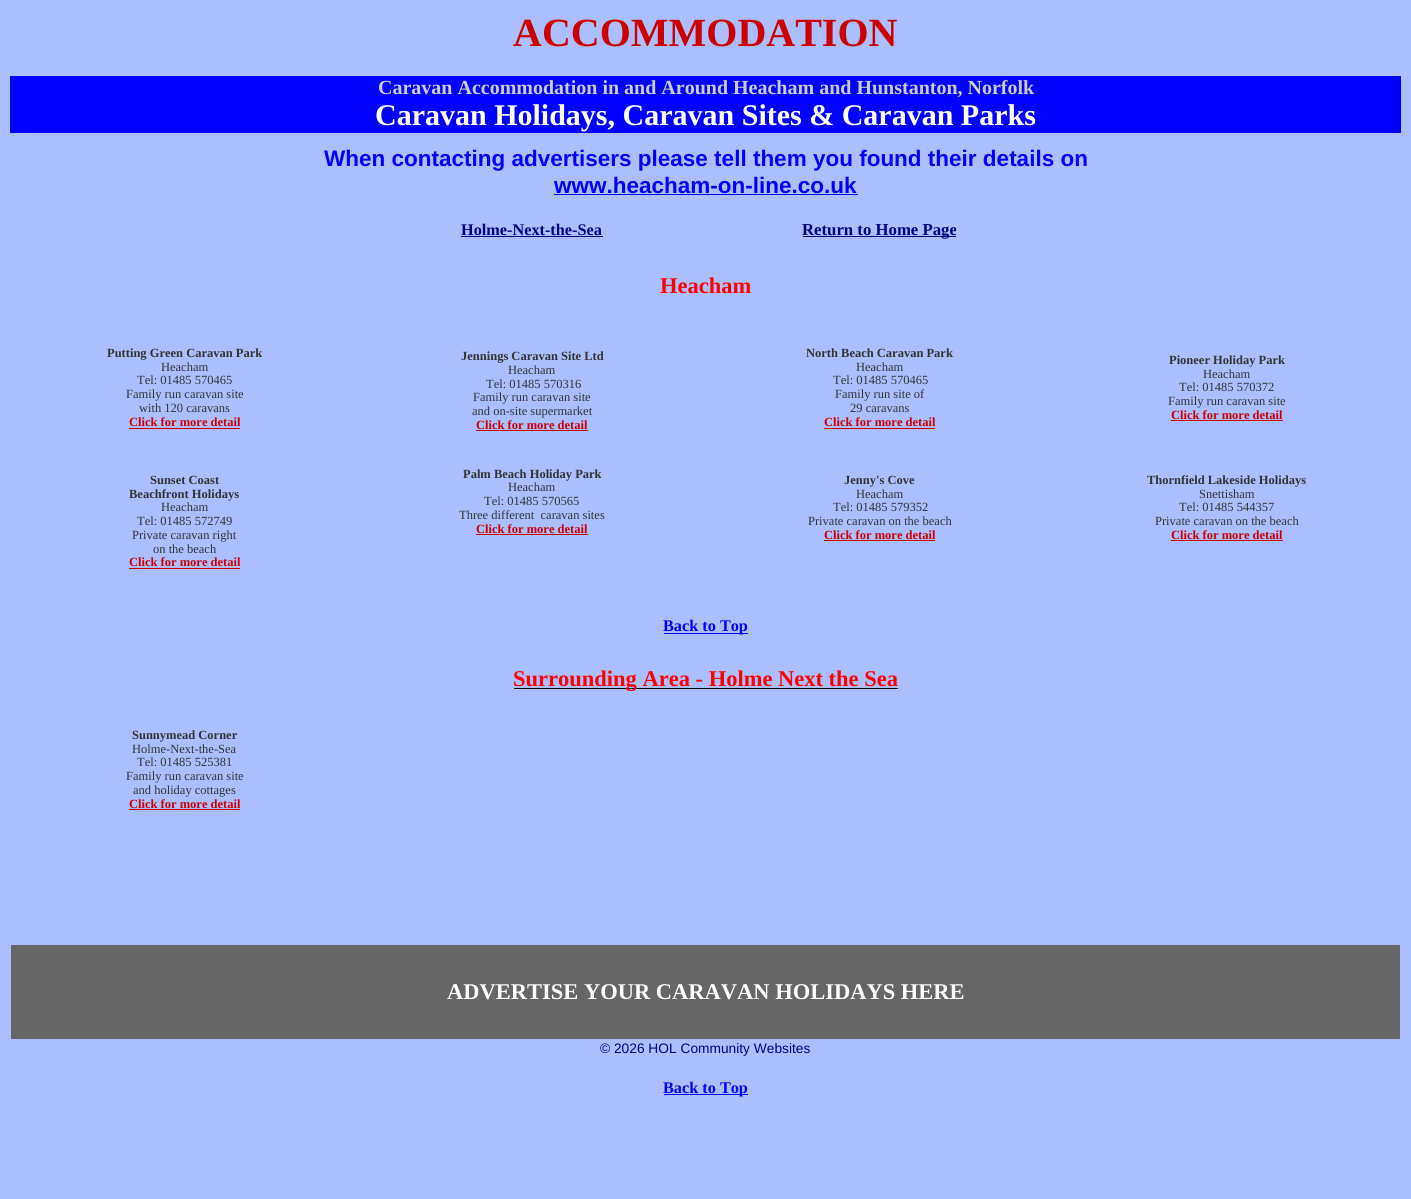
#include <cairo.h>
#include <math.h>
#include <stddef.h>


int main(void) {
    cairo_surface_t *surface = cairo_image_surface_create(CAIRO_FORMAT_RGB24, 1411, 1199);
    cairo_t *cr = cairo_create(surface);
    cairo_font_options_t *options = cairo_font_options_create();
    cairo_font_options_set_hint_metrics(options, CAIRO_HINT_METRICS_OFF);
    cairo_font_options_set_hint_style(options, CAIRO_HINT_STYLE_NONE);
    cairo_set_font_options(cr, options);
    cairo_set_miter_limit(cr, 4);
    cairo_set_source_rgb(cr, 0.671, 0.749, 1);
    cairo_paint(cr);
    cairo_select_font_face(cr, "Liberation Serif", CAIRO_FONT_SLANT_NORMAL, CAIRO_FONT_WEIGHT_BOLD);
    cairo_set_font_size(cr, 40);
    cairo_set_source_rgb(cr, 0.8, 0, 0);
    cairo_move_to(cr, 513, 46);
    cairo_show_text(cr, "ACCOMMODATION");
    cairo_set_source_rgb(cr, 0, 0, 1);
    cairo_rectangle(cr, 10, 76, 1391, 57);
    cairo_fill(cr);
    cairo_set_font_size(cr, 20);
    cairo_set_source_rgb(cr, 0.8, 0.8, 0.8);
    cairo_move_to(cr, 378, 94);
    cairo_show_text(cr, "Caravan Accommodation in and Around Heacham and Hunstanton, Norfolk");
    cairo_set_font_size(cr, 30);
    cairo_set_source_rgb(cr, 1, 1, 1);
    cairo_move_to(cr, 375, 125);
    cairo_show_text(cr, "Caravan Holidays, Caravan Sites & Caravan Parks");
    cairo_select_font_face(cr, "Liberation Sans", CAIRO_FONT_SLANT_NORMAL, CAIRO_FONT_WEIGHT_BOLD);
    cairo_set_font_size(cr, 22.5);
    cairo_set_source_rgb(cr, 0, 0, 1);
    cairo_move_to(cr, 324, 166);
    cairo_show_text(cr, "When contacting advertisers please tell them you found their details on");
    cairo_move_to(cr, 554, 193);
    cairo_show_text(cr, "www.heacham-on-line.co.uk");
    cairo_rectangle(cr, 554, 194, 304, 1);
    cairo_fill(cr);
    cairo_select_font_face(cr, "Liberation Serif", CAIRO_FONT_SLANT_NORMAL, CAIRO_FONT_WEIGHT_BOLD);
    cairo_set_font_size(cr, 16.25);
    cairo_set_source_rgb(cr, 0, 0, 0.502);
    cairo_move_to(cr, 461, 235);
    cairo_show_text(cr, "Holme-Next-the-Sea");
    cairo_rectangle(cr, 461, 236, 142, 1);
    cairo_fill(cr);
    cairo_rectangle(cr, 803, 236, 153, 1);
    cairo_fill(cr);
    cairo_set_font_size(cr, 16.75);
    cairo_move_to(cr, 802, 235);
    cairo_show_text(cr, "Return to Home Page");
    cairo_set_font_size(cr, 22.5);
    cairo_set_source_rgb(cr, 1, 0, 0);
    cairo_move_to(cr, 660, 293);
    cairo_show_text(cr, "Heacham");
    cairo_set_font_size(cr, 12.5);
    cairo_set_source_rgb(cr, 0.2, 0.2, 0.2);
    cairo_move_to(cr, 107, 357);
    cairo_show_text(cr, "Putting Green Caravan Park");
    cairo_select_font_face(cr, "Liberation Serif", CAIRO_FONT_SLANT_NORMAL, CAIRO_FONT_WEIGHT_NORMAL);
    cairo_move_to(cr, 161, 371);
    cairo_show_text(cr, "Heacham");
    cairo_move_to(cr, 137, 384);
    cairo_show_text(cr, "Tel: 01485 570465");
    cairo_move_to(cr, 126, 398);
    cairo_show_text(cr, "Family run caravan site");
    cairo_move_to(cr, 139, 412);
    cairo_show_text(cr, "with 120 caravans");
    cairo_select_font_face(cr, "Liberation Serif", CAIRO_FONT_SLANT_NORMAL, CAIRO_FONT_WEIGHT_BOLD);
    cairo_set_source_rgb(cr, 0.8, 0, 0);
    cairo_move_to(cr, 129, 426);
    cairo_show_text(cr, "Click for more detail");
    cairo_rectangle(cr, 129, 428, 111, 1);
    cairo_fill(cr);
    cairo_set_source_rgb(cr, 0.2, 0.2, 0.2);
    cairo_move_to(cr, 461, 360);
    cairo_show_text(cr, "Jennings Caravan Site Ltd");
    cairo_select_font_face(cr, "Liberation Serif", CAIRO_FONT_SLANT_NORMAL, CAIRO_FONT_WEIGHT_NORMAL);
    cairo_move_to(cr, 508, 374);
    cairo_show_text(cr, "Heacham");
    cairo_move_to(cr, 486, 388);
    cairo_show_text(cr, "Tel: 01485 570316");
    cairo_move_to(cr, 473, 401);
    cairo_show_text(cr, "Family run caravan site");
    cairo_move_to(cr, 472, 415);
    cairo_show_text(cr, "and on-site supermarket");
    cairo_select_font_face(cr, "Liberation Serif", CAIRO_FONT_SLANT_NORMAL, CAIRO_FONT_WEIGHT_BOLD);
    cairo_set_source_rgb(cr, 0.8, 0, 0);
    cairo_move_to(cr, 476, 429);
    cairo_show_text(cr, "Click for more detail");
    cairo_rectangle(cr, 476, 430, 112, 1);
    cairo_fill(cr);
    cairo_set_source_rgb(cr, 0.2, 0.2, 0.2);
    cairo_move_to(cr, 806, 357);
    cairo_show_text(cr, "North Beach Caravan Park");
    cairo_select_font_face(cr, "Liberation Serif", CAIRO_FONT_SLANT_NORMAL, CAIRO_FONT_WEIGHT_NORMAL);
    cairo_move_to(cr, 856, 371);
    cairo_show_text(cr, "Heacham");
    cairo_move_to(cr, 833, 384);
    cairo_show_text(cr, "Tel: 01485 570465");
    cairo_move_to(cr, 835, 398);
    cairo_show_text(cr, "Family run site of");
    cairo_move_to(cr, 850, 412);
    cairo_show_text(cr, "29 caravans");
    cairo_select_font_face(cr, "Liberation Serif", CAIRO_FONT_SLANT_NORMAL, CAIRO_FONT_WEIGHT_BOLD);
    cairo_set_source_rgb(cr, 0.8, 0, 0);
    cairo_move_to(cr, 824, 426);
    cairo_show_text(cr, "Click for more detail");
    cairo_rectangle(cr, 824, 428, 111, 1);
    cairo_fill(cr);
    cairo_set_source_rgb(cr, 0.2, 0.2, 0.2);
    cairo_move_to(cr, 1169, 364);
    cairo_show_text(cr, "Pioneer Holiday Park");
    cairo_select_font_face(cr, "Liberation Serif", CAIRO_FONT_SLANT_NORMAL, CAIRO_FONT_WEIGHT_NORMAL);
    cairo_move_to(cr, 1203, 378);
    cairo_show_text(cr, "Heacham");
    cairo_move_to(cr, 1179, 391);
    cairo_show_text(cr, "Tel: 01485 570372");
    cairo_move_to(cr, 1168, 405);
    cairo_show_text(cr, "Family run caravan site");
    cairo_select_font_face(cr, "Liberation Serif", CAIRO_FONT_SLANT_NORMAL, CAIRO_FONT_WEIGHT_BOLD);
    cairo_set_source_rgb(cr, 0.8, 0, 0);
    cairo_move_to(cr, 1171, 419);
    cairo_show_text(cr, "Click for more detail");
    cairo_rectangle(cr, 1171, 420, 112, 1);
    cairo_fill(cr);
    cairo_set_source_rgb(cr, 0.2, 0.2, 0.2);
    cairo_move_to(cr, 150, 484);
    cairo_show_text(cr, "Sunset Coast");
    cairo_move_to(cr, 129, 498);
    cairo_show_text(cr, "Beachfront Holidays");
    cairo_select_font_face(cr, "Liberation Serif", CAIRO_FONT_SLANT_NORMAL, CAIRO_FONT_WEIGHT_NORMAL);
    cairo_move_to(cr, 161, 511);
    cairo_show_text(cr, "Heacham");
    cairo_move_to(cr, 137, 525);
    cairo_show_text(cr, "Tel: 01485 572749");
    cairo_move_to(cr, 132, 539);
    cairo_show_text(cr, "Private caravan right");
    cairo_move_to(cr, 153, 553);
    cairo_show_text(cr, "on the beach");
    cairo_select_font_face(cr, "Liberation Serif", CAIRO_FONT_SLANT_NORMAL, CAIRO_FONT_WEIGHT_BOLD);
    cairo_set_source_rgb(cr, 0.8, 0, 0);
    cairo_move_to(cr, 129, 566);
    cairo_show_text(cr, "Click for more detail");
    cairo_rectangle(cr, 129, 568, 111, 1);
    cairo_fill(cr);
    cairo_set_source_rgb(cr, 0.2, 0.2, 0.2);
    cairo_move_to(cr, 463, 478);
    cairo_show_text(cr, "Palm Beach Holiday Park");
    cairo_select_font_face(cr, "Liberation Serif", CAIRO_FONT_SLANT_NORMAL, CAIRO_FONT_WEIGHT_NORMAL);
    cairo_move_to(cr, 508, 491);
    cairo_show_text(cr, "Heacham");
    cairo_move_to(cr, 484, 505);
    cairo_show_text(cr, "Tel: 01485 570565");
    cairo_move_to(cr, 459, 519);
    cairo_show_text(cr, "Three different  caravan sites");
    cairo_select_font_face(cr, "Liberation Serif", CAIRO_FONT_SLANT_NORMAL, CAIRO_FONT_WEIGHT_BOLD);
    cairo_set_source_rgb(cr, 0.8, 0, 0);
    cairo_move_to(cr, 476, 533);
    cairo_show_text(cr, "Click for more detail");
    cairo_rectangle(cr, 476, 534, 112, 1);
    cairo_fill(cr);
    cairo_set_source_rgb(cr, 0.2, 0.2, 0.2);
    cairo_move_to(cr, 844, 484);
    cairo_show_text(cr, "Jenny's Cove");
    cairo_select_font_face(cr, "Liberation Serif", CAIRO_FONT_SLANT_NORMAL, CAIRO_FONT_WEIGHT_NORMAL);
    cairo_move_to(cr, 856, 498);
    cairo_show_text(cr, "Heacham");
    cairo_move_to(cr, 833, 511);
    cairo_show_text(cr, "Tel: 01485 579352");
    cairo_move_to(cr, 808, 525);
    cairo_show_text(cr, "Private caravan on the beach");
    cairo_select_font_face(cr, "Liberation Serif", CAIRO_FONT_SLANT_NORMAL, CAIRO_FONT_WEIGHT_BOLD);
    cairo_set_source_rgb(cr, 0.8, 0, 0);
    cairo_move_to(cr, 824, 539);
    cairo_show_text(cr, "Click for more detail");
    cairo_rectangle(cr, 824, 540, 111, 1);
    cairo_fill(cr);
    cairo_set_source_rgb(cr, 0.2, 0.2, 0.2);
    cairo_move_to(cr, 1147, 484);
    cairo_show_text(cr, "Thornfield Lakeside Holidays");
    cairo_select_font_face(cr, "Liberation Serif", CAIRO_FONT_SLANT_NORMAL, CAIRO_FONT_WEIGHT_NORMAL);
    cairo_move_to(cr, 1199, 498);
    cairo_show_text(cr, "Snettisham");
    cairo_move_to(cr, 1179, 511);
    cairo_show_text(cr, "Tel: 01485 544357");
    cairo_move_to(cr, 1155, 525);
    cairo_show_text(cr, "Private caravan on the beach");
    cairo_select_font_face(cr, "Liberation Serif", CAIRO_FONT_SLANT_NORMAL, CAIRO_FONT_WEIGHT_BOLD);
    cairo_set_source_rgb(cr, 0.8, 0, 0);
    cairo_move_to(cr, 1171, 539);
    cairo_show_text(cr, "Click for more detail");
    cairo_rectangle(cr, 1171, 540, 112, 1);
    cairo_fill(cr);
    cairo_set_source_rgb(cr, 0, 0, 1);
    cairo_rectangle(cr, 664, 633, 84, 1);
    cairo_fill(cr);
    cairo_set_font_size(cr, 16.25);
    cairo_move_to(cr, 663, 631);
    cairo_show_text(cr, "Back to Top");
    cairo_set_source_rgb(cr, 0, 0, 0);
    cairo_rectangle(cr, 514, 688, 384, 1);
    cairo_fill(cr);
    cairo_set_font_size(cr, 22.5);
    cairo_set_source_rgb(cr, 1, 0, 0);
    cairo_move_to(cr, 513, 686);
    cairo_show_text(cr, "Surrounding Area - Holme Next the Sea");
    cairo_set_font_size(cr, 12.5);
    cairo_set_source_rgb(cr, 0.2, 0.2, 0.2);
    cairo_move_to(cr, 132, 739);
    cairo_show_text(cr, "Sunnymead Corner");
    cairo_select_font_face(cr, "Liberation Serif", CAIRO_FONT_SLANT_NORMAL, CAIRO_FONT_WEIGHT_NORMAL);
    cairo_move_to(cr, 132, 753);
    cairo_show_text(cr, "Holme-Next-the-Sea");
    cairo_move_to(cr, 137, 766);
    cairo_show_text(cr, "Tel: 01485 525381");
    cairo_move_to(cr, 126, 780);
    cairo_show_text(cr, "Family run caravan site");
    cairo_move_to(cr, 133, 794);
    cairo_show_text(cr, "and holiday cottages");
    cairo_select_font_face(cr, "Liberation Serif", CAIRO_FONT_SLANT_NORMAL, CAIRO_FONT_WEIGHT_BOLD);
    cairo_set_source_rgb(cr, 0.8, 0, 0);
    cairo_move_to(cr, 129, 808);
    cairo_show_text(cr, "Click for more detail");
    cairo_rectangle(cr, 129, 809, 111, 1);
    cairo_fill(cr);
    cairo_set_source_rgb(cr, 0.4, 0.4, 0.4);
    cairo_rectangle(cr, 11, 945, 1389, 94);
    cairo_fill(cr);
    cairo_set_font_size(cr, 22.5);
    cairo_set_source_rgb(cr, 1, 1, 1);
    cairo_move_to(cr, 447, 999);
    cairo_show_text(cr, "ADVERTISE YOUR CARAVAN HOLIDAYS HERE");
    cairo_select_font_face(cr, "Liberation Sans", CAIRO_FONT_SLANT_NORMAL, CAIRO_FONT_WEIGHT_NORMAL);
    cairo_set_font_size(cr, 13.75);
    cairo_set_source_rgb(cr, 0, 0, 0.502);
    cairo_move_to(cr, 600, 1053);
    cairo_show_text(cr, "© 2026 HOL Community Websites");
    cairo_set_source_rgb(cr, 0, 0, 1);
    cairo_rectangle(cr, 664, 1094, 84, 1);
    cairo_fill(cr);
    cairo_select_font_face(cr, "Liberation Serif", CAIRO_FONT_SLANT_NORMAL, CAIRO_FONT_WEIGHT_BOLD);
    cairo_set_font_size(cr, 16.25);
    cairo_move_to(cr, 663, 1093);
    cairo_show_text(cr, "Back to Top");
    cairo_surface_write_to_png(surface, "page.png");
    cairo_font_options_destroy(options);
    cairo_destroy(cr);
    cairo_surface_destroy(surface);
    return 0;
}
